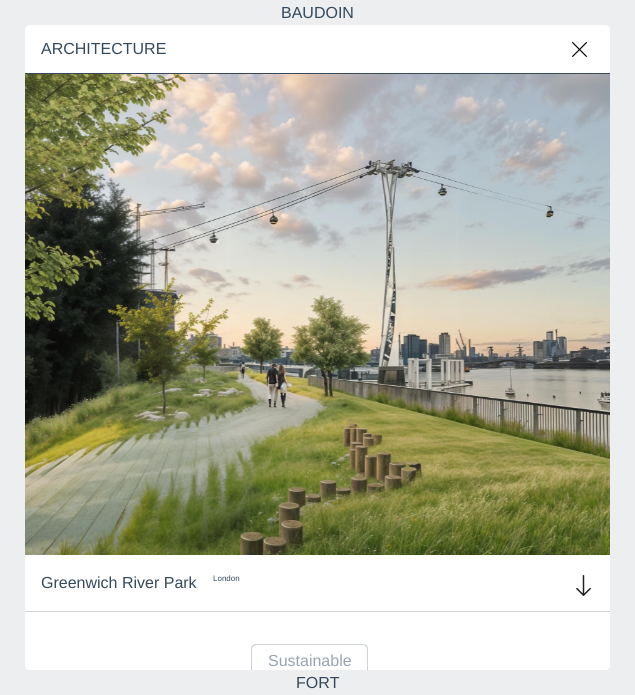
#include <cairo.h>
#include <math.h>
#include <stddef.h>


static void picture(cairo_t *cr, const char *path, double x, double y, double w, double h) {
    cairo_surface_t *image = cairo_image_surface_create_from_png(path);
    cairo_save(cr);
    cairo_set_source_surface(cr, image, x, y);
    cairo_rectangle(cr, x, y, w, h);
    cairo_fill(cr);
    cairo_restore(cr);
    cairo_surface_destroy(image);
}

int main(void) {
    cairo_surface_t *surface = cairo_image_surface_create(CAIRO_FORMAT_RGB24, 635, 695);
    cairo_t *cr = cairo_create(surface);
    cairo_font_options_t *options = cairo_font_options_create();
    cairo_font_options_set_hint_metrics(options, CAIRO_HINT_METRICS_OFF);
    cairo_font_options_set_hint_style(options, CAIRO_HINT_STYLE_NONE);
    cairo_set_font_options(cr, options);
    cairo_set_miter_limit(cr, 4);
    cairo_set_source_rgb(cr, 0.922, 0.933, 0.937);
    cairo_paint(cr);
    cairo_select_font_face(cr, "Liberation Sans", CAIRO_FONT_SLANT_NORMAL, CAIRO_FONT_WEIGHT_NORMAL);
    cairo_set_font_size(cr, 16);
    cairo_set_source_rgb(cr, 0.204, 0.286, 0.361);
    cairo_move_to(cr, 281, 18);
    cairo_show_text(cr, "BAUDOIN");
    cairo_move_to(cr, 296, 688);
    cairo_show_text(cr, "FORT");
    cairo_set_source_rgb(cr, 1, 1, 1);
    cairo_new_path(cr);
    cairo_move_to(cr, 30, 25);
    cairo_line_to(cr, 605, 25);
    cairo_curve_to(cr, 608, 25, 610, 27, 610, 30);
    cairo_line_to(cr, 610, 74);
    cairo_line_to(cr, 25, 74);
    cairo_line_to(cr, 25, 30);
    cairo_curve_to(cr, 25, 27, 27, 25, 30, 25);
    cairo_close_path(cr);
    cairo_fill(cr);
    cairo_set_source_rgb(cr, 0.204, 0.286, 0.361);
    cairo_rectangle(cr, 25, 73, 585, 1);
    cairo_fill(cr);
    cairo_move_to(cr, 41, 54);
    cairo_show_text(cr, "ARCHITECTURE");
    picture(cr, "img1.png", 572, 42, 15, 15);
    cairo_set_source_rgb(cr, 1, 1, 1);
    cairo_new_path(cr);
    cairo_move_to(cr, 25, 74);
    cairo_line_to(cr, 610, 74);
    cairo_line_to(cr, 610, 665);
    cairo_curve_to(cr, 610, 668, 608, 670, 605, 670);
    cairo_line_to(cr, 30, 670);
    cairo_curve_to(cr, 27, 670, 25, 668, 25, 665);
    cairo_close_path(cr);
    cairo_fill(cr);
    picture(cr, "img2.png", 25, 74, 585, 481);
    cairo_set_source_rgb(cr, 0.8, 0.824, 0.839);
    cairo_rectangle(cr, 25, 611, 585, 1);
    cairo_fill(cr);
    cairo_set_source_rgb(cr, 0.204, 0.286, 0.361);
    cairo_move_to(cr, 41, 588);
    cairo_show_text(cr, "Greenwich River Park");
    cairo_set_font_size(cr, 8);
    cairo_move_to(cr, 213, 581);
    cairo_show_text(cr, "London");
    picture(cr, "img3.png", 576, 575, 15, 21);
    cairo_set_source_rgb(cr, 1, 1, 1);
    cairo_new_path(cr);
    cairo_move_to(cr, 25, 612);
    cairo_line_to(cr, 610, 612);
    cairo_line_to(cr, 610, 665);
    cairo_curve_to(cr, 610, 668, 608, 670, 605, 670);
    cairo_line_to(cr, 30, 670);
    cairo_curve_to(cr, 27, 670, 25, 668, 25, 665);
    cairo_close_path(cr);
    cairo_fill(cr);
    cairo_set_source_rgb(cr, 0.8, 0.824, 0.839);
    cairo_new_path(cr);
    cairo_move_to(cr, 256, 644);
    cairo_curve_to(cr, 253, 644, 251, 646, 251, 649);
    cairo_line_to(cr, 251, 670);
    cairo_line_to(cr, 252, 670);
    cairo_line_to(cr, 252, 649);
    cairo_curve_to(cr, 252, 647, 254, 645, 256, 645);
    cairo_line_to(cr, 363, 645);
    cairo_curve_to(cr, 365, 645, 367, 647, 367, 649);
    cairo_line_to(cr, 367, 670);
    cairo_line_to(cr, 368, 670);
    cairo_line_to(cr, 368, 649);
    cairo_curve_to(cr, 368, 646, 366, 644, 363, 644);
    cairo_close_path(cr);
    cairo_fill(cr);
    cairo_set_font_size(cr, 16);
    cairo_set_source_rgb(cr, 0.604, 0.643, 0.682);
    cairo_move_to(cr, 268, 666);
    cairo_show_text(cr, "Sustainable");
    cairo_surface_write_to_png(surface, "page.png");
    cairo_font_options_destroy(options);
    cairo_destroy(cr);
    cairo_surface_destroy(surface);
    return 0;
}
